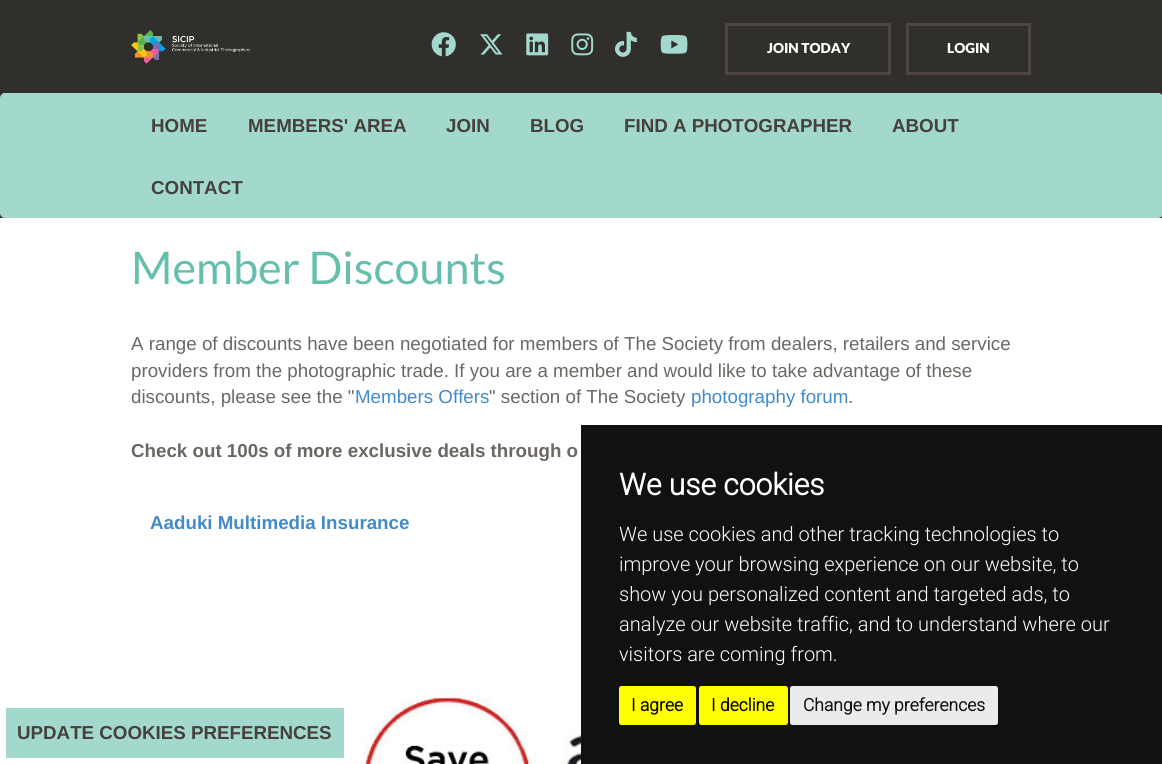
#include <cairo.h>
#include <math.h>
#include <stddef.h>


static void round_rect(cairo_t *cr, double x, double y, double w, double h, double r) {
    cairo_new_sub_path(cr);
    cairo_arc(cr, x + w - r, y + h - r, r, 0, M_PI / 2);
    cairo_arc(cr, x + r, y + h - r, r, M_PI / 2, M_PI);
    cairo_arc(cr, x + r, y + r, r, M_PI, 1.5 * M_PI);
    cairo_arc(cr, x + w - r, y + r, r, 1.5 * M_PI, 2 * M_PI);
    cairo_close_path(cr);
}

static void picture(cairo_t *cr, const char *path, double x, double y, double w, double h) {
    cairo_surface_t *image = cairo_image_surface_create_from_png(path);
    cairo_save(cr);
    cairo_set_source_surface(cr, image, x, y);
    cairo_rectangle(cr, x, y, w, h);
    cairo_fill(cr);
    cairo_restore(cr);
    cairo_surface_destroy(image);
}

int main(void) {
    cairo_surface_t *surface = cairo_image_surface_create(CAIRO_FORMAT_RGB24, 1162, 764);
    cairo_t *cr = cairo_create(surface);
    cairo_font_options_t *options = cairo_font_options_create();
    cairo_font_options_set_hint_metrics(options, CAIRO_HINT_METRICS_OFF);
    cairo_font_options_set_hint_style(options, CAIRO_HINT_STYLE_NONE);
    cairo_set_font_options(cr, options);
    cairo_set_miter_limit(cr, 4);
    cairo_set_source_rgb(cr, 1, 1, 1);
    cairo_paint(cr);
    cairo_set_source_rgb(cr, 0.188, 0.184, 0.173);
    cairo_rectangle(cr, 0, 0, 1162, 218);
    cairo_fill(cr);
    picture(cr, "img1.png", 131, 30, 119, 34);
    picture(cr, "img2.png", 431, 32, 25, 25);
    picture(cr, "img3.png", 480, 34, 23, 21);
    picture(cr, "img4.png", 526, 33, 23, 23);
    picture(cr, "img5.png", 571, 33, 23, 23);
    picture(cr, "img6.png", 615, 31, 22, 26);
    picture(cr, "img7.png", 660, 35, 28, 19);
    cairo_rectangle(cr, 726.5, 24.5, 163, 49);
    cairo_set_source_rgb(cr, 0.302, 0.275, 0.255);
    cairo_set_line_width(cr, 3);
    cairo_stroke(cr);
    cairo_select_font_face(cr, "Lato Black", CAIRO_FONT_SLANT_NORMAL, CAIRO_FONT_WEIGHT_NORMAL);
    cairo_set_font_size(cr, 13.75);
    cairo_set_source_rgb(cr, 1, 1, 1);
    cairo_move_to(cr, 767, 53);
    cairo_show_text(cr, "JOIN TODAY");
    cairo_rectangle(cr, 907.5, 24.5, 122, 49);
    cairo_set_source_rgb(cr, 0.302, 0.275, 0.255);
    cairo_stroke(cr);
    cairo_set_source_rgb(cr, 1, 1, 1);
    cairo_move_to(cr, 947, 53);
    cairo_show_text(cr, "LOGIN");
    cairo_set_source_rgb(cr, 0.639, 0.847, 0.804);
    round_rect(cr, 0, 93, 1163, 125, 5);
    cairo_fill(cr);
    cairo_rectangle(cr, 3, 93, 1157, 1);
    cairo_fill(cr);
    cairo_select_font_face(cr, "Liberation Sans", CAIRO_FONT_SLANT_NORMAL, CAIRO_FONT_WEIGHT_BOLD);
    cairo_set_font_size(cr, 18.75);
    cairo_set_source_rgb(cr, 0.271, 0.251, 0.235);
    cairo_move_to(cr, 151, 132);
    cairo_show_text(cr, "HOME");
    cairo_move_to(cr, 248, 132);
    cairo_show_text(cr, "MEMBERS' AREA");
    cairo_move_to(cr, 446, 132);
    cairo_show_text(cr, "JOIN");
    cairo_move_to(cr, 530, 132);
    cairo_show_text(cr, "BLOG");
    cairo_move_to(cr, 624, 132);
    cairo_show_text(cr, "FIND A PHOTOGRAPHER");
    cairo_move_to(cr, 892, 132);
    cairo_show_text(cr, "ABOUT");
    cairo_move_to(cr, 151, 194);
    cairo_show_text(cr, "CONTACT");
    cairo_select_font_face(cr, "Lato", CAIRO_FONT_SLANT_NORMAL, CAIRO_FONT_WEIGHT_NORMAL);
    cairo_set_font_size(cr, 45);
    cairo_set_source_rgb(cr, 0.4, 0.749, 0.675);
    cairo_move_to(cr, 131, 284);
    cairo_show_text(cr, "Member Discounts");
    cairo_select_font_face(cr, "Liberation Sans", CAIRO_FONT_SLANT_NORMAL, CAIRO_FONT_WEIGHT_NORMAL);
    cairo_set_font_size(cr, 18.75);
    cairo_set_source_rgb(cr, 0.42, 0.408, 0.392);
    cairo_move_to(cr, 131, 350);
    cairo_show_text(cr, "A range of discounts have been negotiated for members of The Society from dealers, retailers and service");
    cairo_move_to(cr, 131, 377);
    cairo_show_text(cr, "providers from the photographic trade. If you are a member and would like to take advantage of these");
    cairo_move_to(cr, 131, 403);
    cairo_show_text(cr, "discounts, please see the \"");
    cairo_set_source_rgb(cr, 0.259, 0.545, 0.792);
    cairo_move_to(cr, 355, 403);
    cairo_show_text(cr, "Members Offers");
    cairo_set_source_rgb(cr, 0.42, 0.408, 0.392);
    cairo_move_to(cr, 489, 403);
    cairo_show_text(cr, "\" section of The Society");
    cairo_set_source_rgb(cr, 0.259, 0.545, 0.792);
    cairo_move_to(cr, 691, 403);
    cairo_show_text(cr, "photography forum");
    cairo_set_source_rgb(cr, 0.42, 0.408, 0.392);
    cairo_move_to(cr, 848, 403);
    cairo_show_text(cr, ".");
    cairo_select_font_face(cr, "Liberation Sans", CAIRO_FONT_SLANT_NORMAL, CAIRO_FONT_WEIGHT_BOLD);
    cairo_move_to(cr, 131, 457);
    cairo_show_text(cr, "Check out 100s of more exclusive deals through o");
    cairo_set_source_rgb(cr, 0.259, 0.545, 0.792);
    cairo_move_to(cr, 150, 529);
    cairo_show_text(cr, "Aaduki Multimedia Insurance");
    picture(cr, "img8.png", 364, 589, 217, 175);
    cairo_set_source_rgb(cr, 0.067, 0.067, 0.067);
    cairo_rectangle(cr, 581, 425, 581, 339);
    cairo_fill(cr);
    cairo_select_font_face(cr, "Roboto", CAIRO_FONT_SLANT_NORMAL, CAIRO_FONT_WEIGHT_BOLD);
    cairo_set_font_size(cr, 30);
    cairo_set_source_rgb(cr, 1, 1, 1);
    cairo_move_to(cr, 619, 495);
    cairo_show_text(cr, "We use cookies");
    cairo_select_font_face(cr, "Roboto Light", CAIRO_FONT_SLANT_NORMAL, CAIRO_FONT_WEIGHT_NORMAL);
    cairo_set_font_size(cr, 20);
    cairo_move_to(cr, 619, 541);
    cairo_show_text(cr, "We use cookies and other tracking technologies to");
    cairo_move_to(cr, 619, 571);
    cairo_show_text(cr, "improve your browsing experience on our website, to");
    cairo_move_to(cr, 619, 601);
    cairo_show_text(cr, "show you personalized content and targeted ads, to");
    cairo_move_to(cr, 619, 631);
    cairo_show_text(cr, "analyze our website traffic, and to understand where our");
    cairo_move_to(cr, 619, 661);
    cairo_show_text(cr, "visitors are coming from.");
    cairo_set_source_rgb(cr, 1, 1, 0);
    round_rect(cr, 619, 686, 77, 39, 2.5);
    cairo_fill(cr);
    cairo_select_font_face(cr, "Roboto", CAIRO_FONT_SLANT_NORMAL, CAIRO_FONT_WEIGHT_BOLD);
    cairo_set_font_size(cr, 17.5);
    cairo_set_source_rgb(cr, 0, 0, 0);
    cairo_move_to(cr, 631, 711);
    cairo_show_text(cr, "I agree");
    cairo_set_source_rgb(cr, 1, 1, 0);
    round_rect(cr, 699, 686, 89, 39, 2.5);
    cairo_fill(cr);
    cairo_set_source_rgb(cr, 0, 0, 0);
    cairo_move_to(cr, 711, 711);
    cairo_show_text(cr, "I decline");
    cairo_set_source_rgb(cr, 0.918, 0.918, 0.918);
    round_rect(cr, 790, 686, 208, 39, 2.5);
    cairo_fill(cr);
    cairo_set_source_rgb(cr, 0.067, 0.067, 0.067);
    cairo_move_to(cr, 803, 711);
    cairo_show_text(cr, "Change my preferences");
    cairo_set_source_rgb(cr, 0.639, 0.847, 0.804);
    cairo_rectangle(cr, 6, 708, 338, 50);
    cairo_fill(cr);
    cairo_select_font_face(cr, "Liberation Sans", CAIRO_FONT_SLANT_NORMAL, CAIRO_FONT_WEIGHT_BOLD);
    cairo_set_font_size(cr, 18.75);
    cairo_set_source_rgb(cr, 0.271, 0.251, 0.235);
    cairo_move_to(cr, 17, 739);
    cairo_show_text(cr, "UPDATE COOKIES PREFERENCES");
    cairo_surface_write_to_png(surface, "page.png");
    cairo_font_options_destroy(options);
    cairo_destroy(cr);
    cairo_surface_destroy(surface);
    return 0;
}
